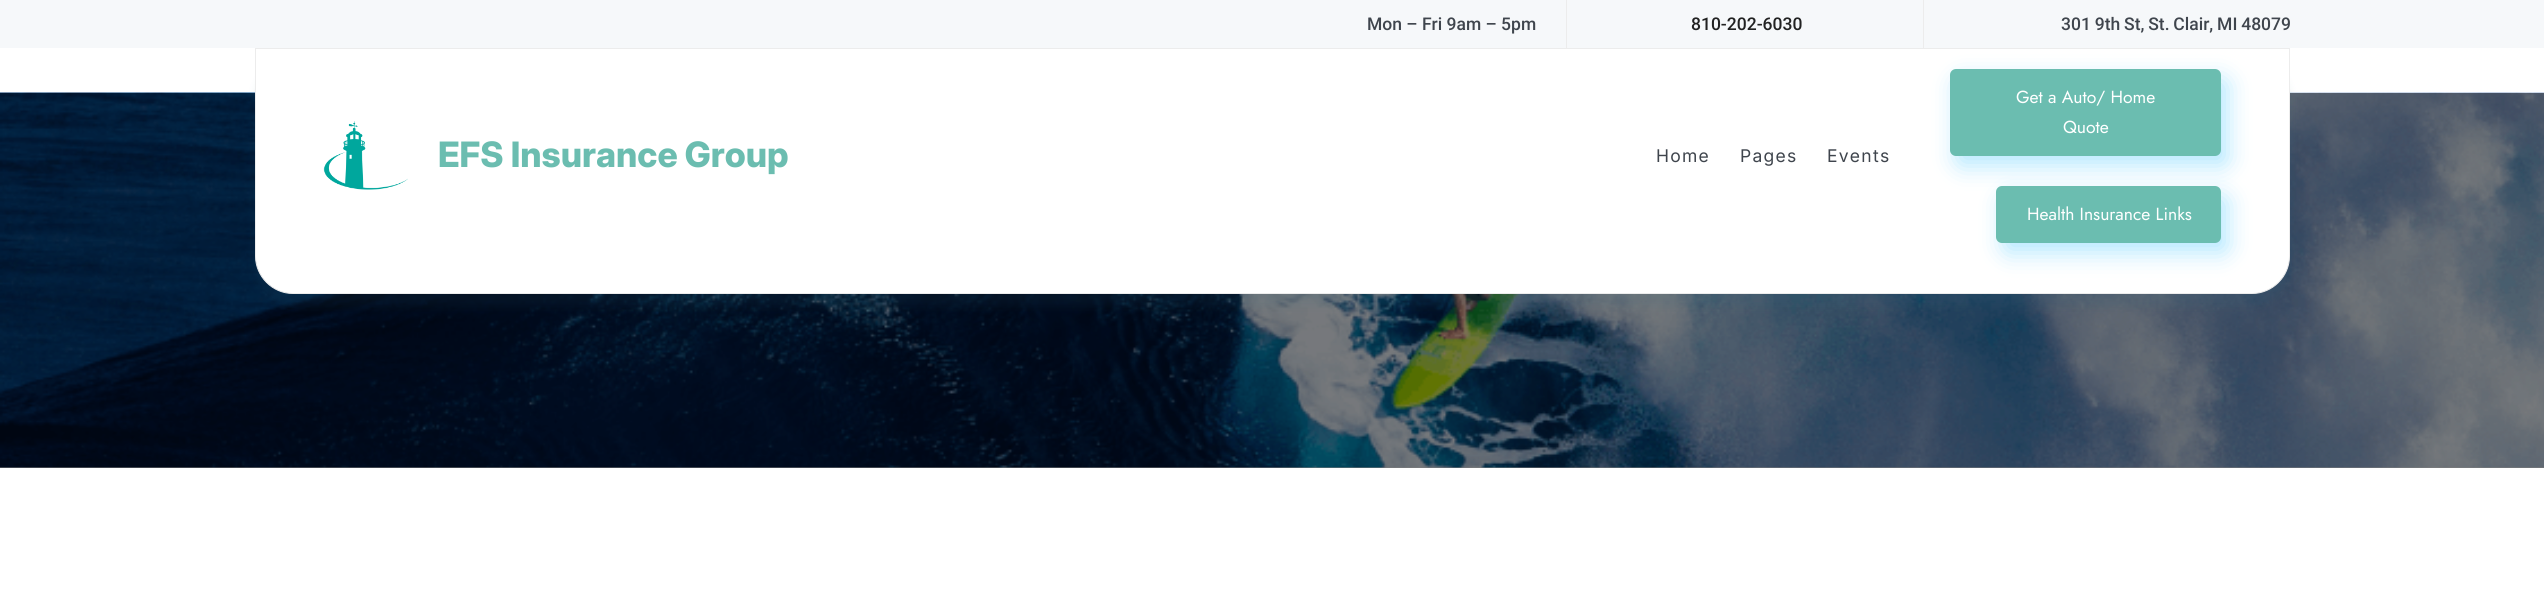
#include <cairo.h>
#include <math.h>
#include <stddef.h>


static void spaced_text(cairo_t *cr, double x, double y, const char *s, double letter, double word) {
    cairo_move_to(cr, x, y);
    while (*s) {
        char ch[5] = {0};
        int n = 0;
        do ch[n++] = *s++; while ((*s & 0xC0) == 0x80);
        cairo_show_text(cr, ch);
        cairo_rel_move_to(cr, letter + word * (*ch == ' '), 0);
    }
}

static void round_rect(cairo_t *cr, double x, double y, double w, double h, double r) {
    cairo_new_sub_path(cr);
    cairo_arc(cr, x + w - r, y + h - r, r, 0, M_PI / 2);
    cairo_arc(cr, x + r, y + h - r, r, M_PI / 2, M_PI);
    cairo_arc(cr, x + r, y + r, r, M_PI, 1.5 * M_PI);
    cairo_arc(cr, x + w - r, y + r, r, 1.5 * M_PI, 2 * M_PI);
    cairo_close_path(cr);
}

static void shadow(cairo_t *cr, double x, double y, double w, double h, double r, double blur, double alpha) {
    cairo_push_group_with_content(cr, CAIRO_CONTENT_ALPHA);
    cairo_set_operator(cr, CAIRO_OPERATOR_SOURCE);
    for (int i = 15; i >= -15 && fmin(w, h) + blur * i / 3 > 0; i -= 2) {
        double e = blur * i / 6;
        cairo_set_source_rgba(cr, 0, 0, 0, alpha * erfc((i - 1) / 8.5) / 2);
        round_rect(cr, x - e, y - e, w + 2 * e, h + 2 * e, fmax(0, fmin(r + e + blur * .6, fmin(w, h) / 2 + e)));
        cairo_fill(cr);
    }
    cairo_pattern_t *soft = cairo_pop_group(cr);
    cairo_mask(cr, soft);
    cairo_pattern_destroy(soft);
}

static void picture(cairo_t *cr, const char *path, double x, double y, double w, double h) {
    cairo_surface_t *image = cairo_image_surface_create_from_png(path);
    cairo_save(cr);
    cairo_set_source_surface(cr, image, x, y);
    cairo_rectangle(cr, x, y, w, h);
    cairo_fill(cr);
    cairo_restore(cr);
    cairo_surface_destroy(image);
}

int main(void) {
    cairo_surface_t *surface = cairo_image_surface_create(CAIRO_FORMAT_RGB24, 2544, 600);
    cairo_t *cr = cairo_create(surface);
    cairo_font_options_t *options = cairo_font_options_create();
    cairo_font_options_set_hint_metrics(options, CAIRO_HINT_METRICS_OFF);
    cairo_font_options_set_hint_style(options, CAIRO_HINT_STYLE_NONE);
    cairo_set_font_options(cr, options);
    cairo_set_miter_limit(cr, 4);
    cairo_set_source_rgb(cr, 1, 1, 1);
    cairo_paint(cr);
    cairo_set_source_rgb(cr, 0.502, 0.502, 0.502);
    cairo_rectangle(cr, 0, 467, 2544, 1);
    cairo_fill(cr);
    cairo_set_source_rgb(cr, 0.961, 0.969, 0.98);
    cairo_rectangle(cr, 0, 0, 2544, 48);
    cairo_fill(cr);
    cairo_select_font_face(cr, "Roboto Medium", CAIRO_FONT_SLANT_NORMAL, CAIRO_FONT_WEIGHT_NORMAL);
    cairo_set_font_size(cr, 17.5);
    cairo_set_source_rgb(cr, 0.247, 0.271, 0.302);
    cairo_move_to(cr, 1367, 30);
    cairo_show_text(cr, "Mon – Fri 9am – 5pm");
    cairo_set_source_rgb(cr, 0.925, 0.925, 0.925);
    cairo_rectangle(cr, 1923, 0, 1, 48);
    cairo_fill(cr);
    cairo_rectangle(cr, 1566, 0, 1, 48);
    cairo_fill(cr);
    cairo_set_source_rgb(cr, 0.133, 0.133, 0.133);
    cairo_move_to(cr, 1691, 30);
    cairo_show_text(cr, "810-202-6030");
    cairo_set_source_rgb(cr, 0.247, 0.271, 0.302);
    spaced_text(cr, 2061, 30, "301 9th St, St. Clair, MI 48079", 0, -0.5);
    picture(cr, "img2.png", 0, 92, 2544, 376);
    cairo_set_source_rgb(cr, 0.161, 0.431, 0.541);
    shadow(cr, 255, 60, 2035, 246, 38, 4, 0.1);
    cairo_set_source_rgb(cr, 1, 1, 1);
    cairo_new_path(cr);
    cairo_move_to(cr, 255.5, 48.5);
    cairo_line_to(cr, 2289.5, 48.5);
    cairo_line_to(cr, 2289.5, 256);
    cairo_curve_to(cr, 2289.5, 276.5, 2272.5, 293.5, 2252, 293.5);
    cairo_line_to(cr, 293, 293.5);
    cairo_curve_to(cr, 272.5, 293.5, 255.5, 276.5, 255.5, 256);
    cairo_close_path(cr);
    cairo_fill_preserve(cr);
    cairo_set_source_rgb(cr, 0.925, 0.925, 0.925);
    cairo_set_line_width(cr, 1);
    cairo_stroke(cr);
    picture(cr, "img1.png", 323, 121, 85, 69);
    cairo_select_font_face(cr, "Inter ExtraBold", CAIRO_FONT_SLANT_NORMAL, CAIRO_FONT_WEIGHT_NORMAL);
    cairo_set_font_size(cr, 35);
    cairo_set_source_rgb(cr, 0.42, 0.741, 0.69);
    cairo_move_to(cr, 438, 167);
    cairo_show_text(cr, "EFS Insurance Group");
    cairo_select_font_face(cr, "Inter", CAIRO_FONT_SLANT_NORMAL, CAIRO_FONT_WEIGHT_NORMAL);
    cairo_set_font_size(cr, 17.5);
    cairo_set_source_rgb(cr, 0.247, 0.271, 0.302);
    spaced_text(cr, 1656, 162, "Home", 1.25, 0);
    spaced_text(cr, 1740, 162, "Pages", 1.25, 0);
    spaced_text(cr, 1827, 162, "Events", 1.25, 0);
    cairo_set_source_rgb(cr, 0.043, 0.706, 0.992);
    shadow(cr, 1956, 79, 272, 87, 6, 11.5, 0.3);
    cairo_set_source_rgb(cr, 0.42, 0.741, 0.69);
    round_rect(cr, 1950, 69, 271, 87, 6);
    cairo_fill(cr);
    cairo_select_font_face(cr, "Jost", CAIRO_FONT_SLANT_NORMAL, CAIRO_FONT_WEIGHT_NORMAL);
    cairo_set_source_rgb(cr, 1, 1, 1);
    cairo_move_to(cr, 2016, 103);
    cairo_show_text(cr, "Get a Auto/ Home");
    cairo_move_to(cr, 2063, 133);
    cairo_show_text(cr, "Quote");
    cairo_set_source_rgb(cr, 0.043, 0.706, 0.992);
    shadow(cr, 2003, 196, 225, 57, 6, 11.5, 0.3);
    cairo_set_source_rgb(cr, 0.42, 0.741, 0.69);
    round_rect(cr, 1996, 186, 225, 57, 6);
    cairo_fill(cr);
    cairo_set_source_rgb(cr, 1, 1, 1);
    cairo_move_to(cr, 2027, 220);
    cairo_show_text(cr, "Health Insurance Links");
    cairo_surface_write_to_png(surface, "page.png");
    cairo_font_options_destroy(options);
    cairo_destroy(cr);
    cairo_surface_destroy(surface);
    return 0;
}
